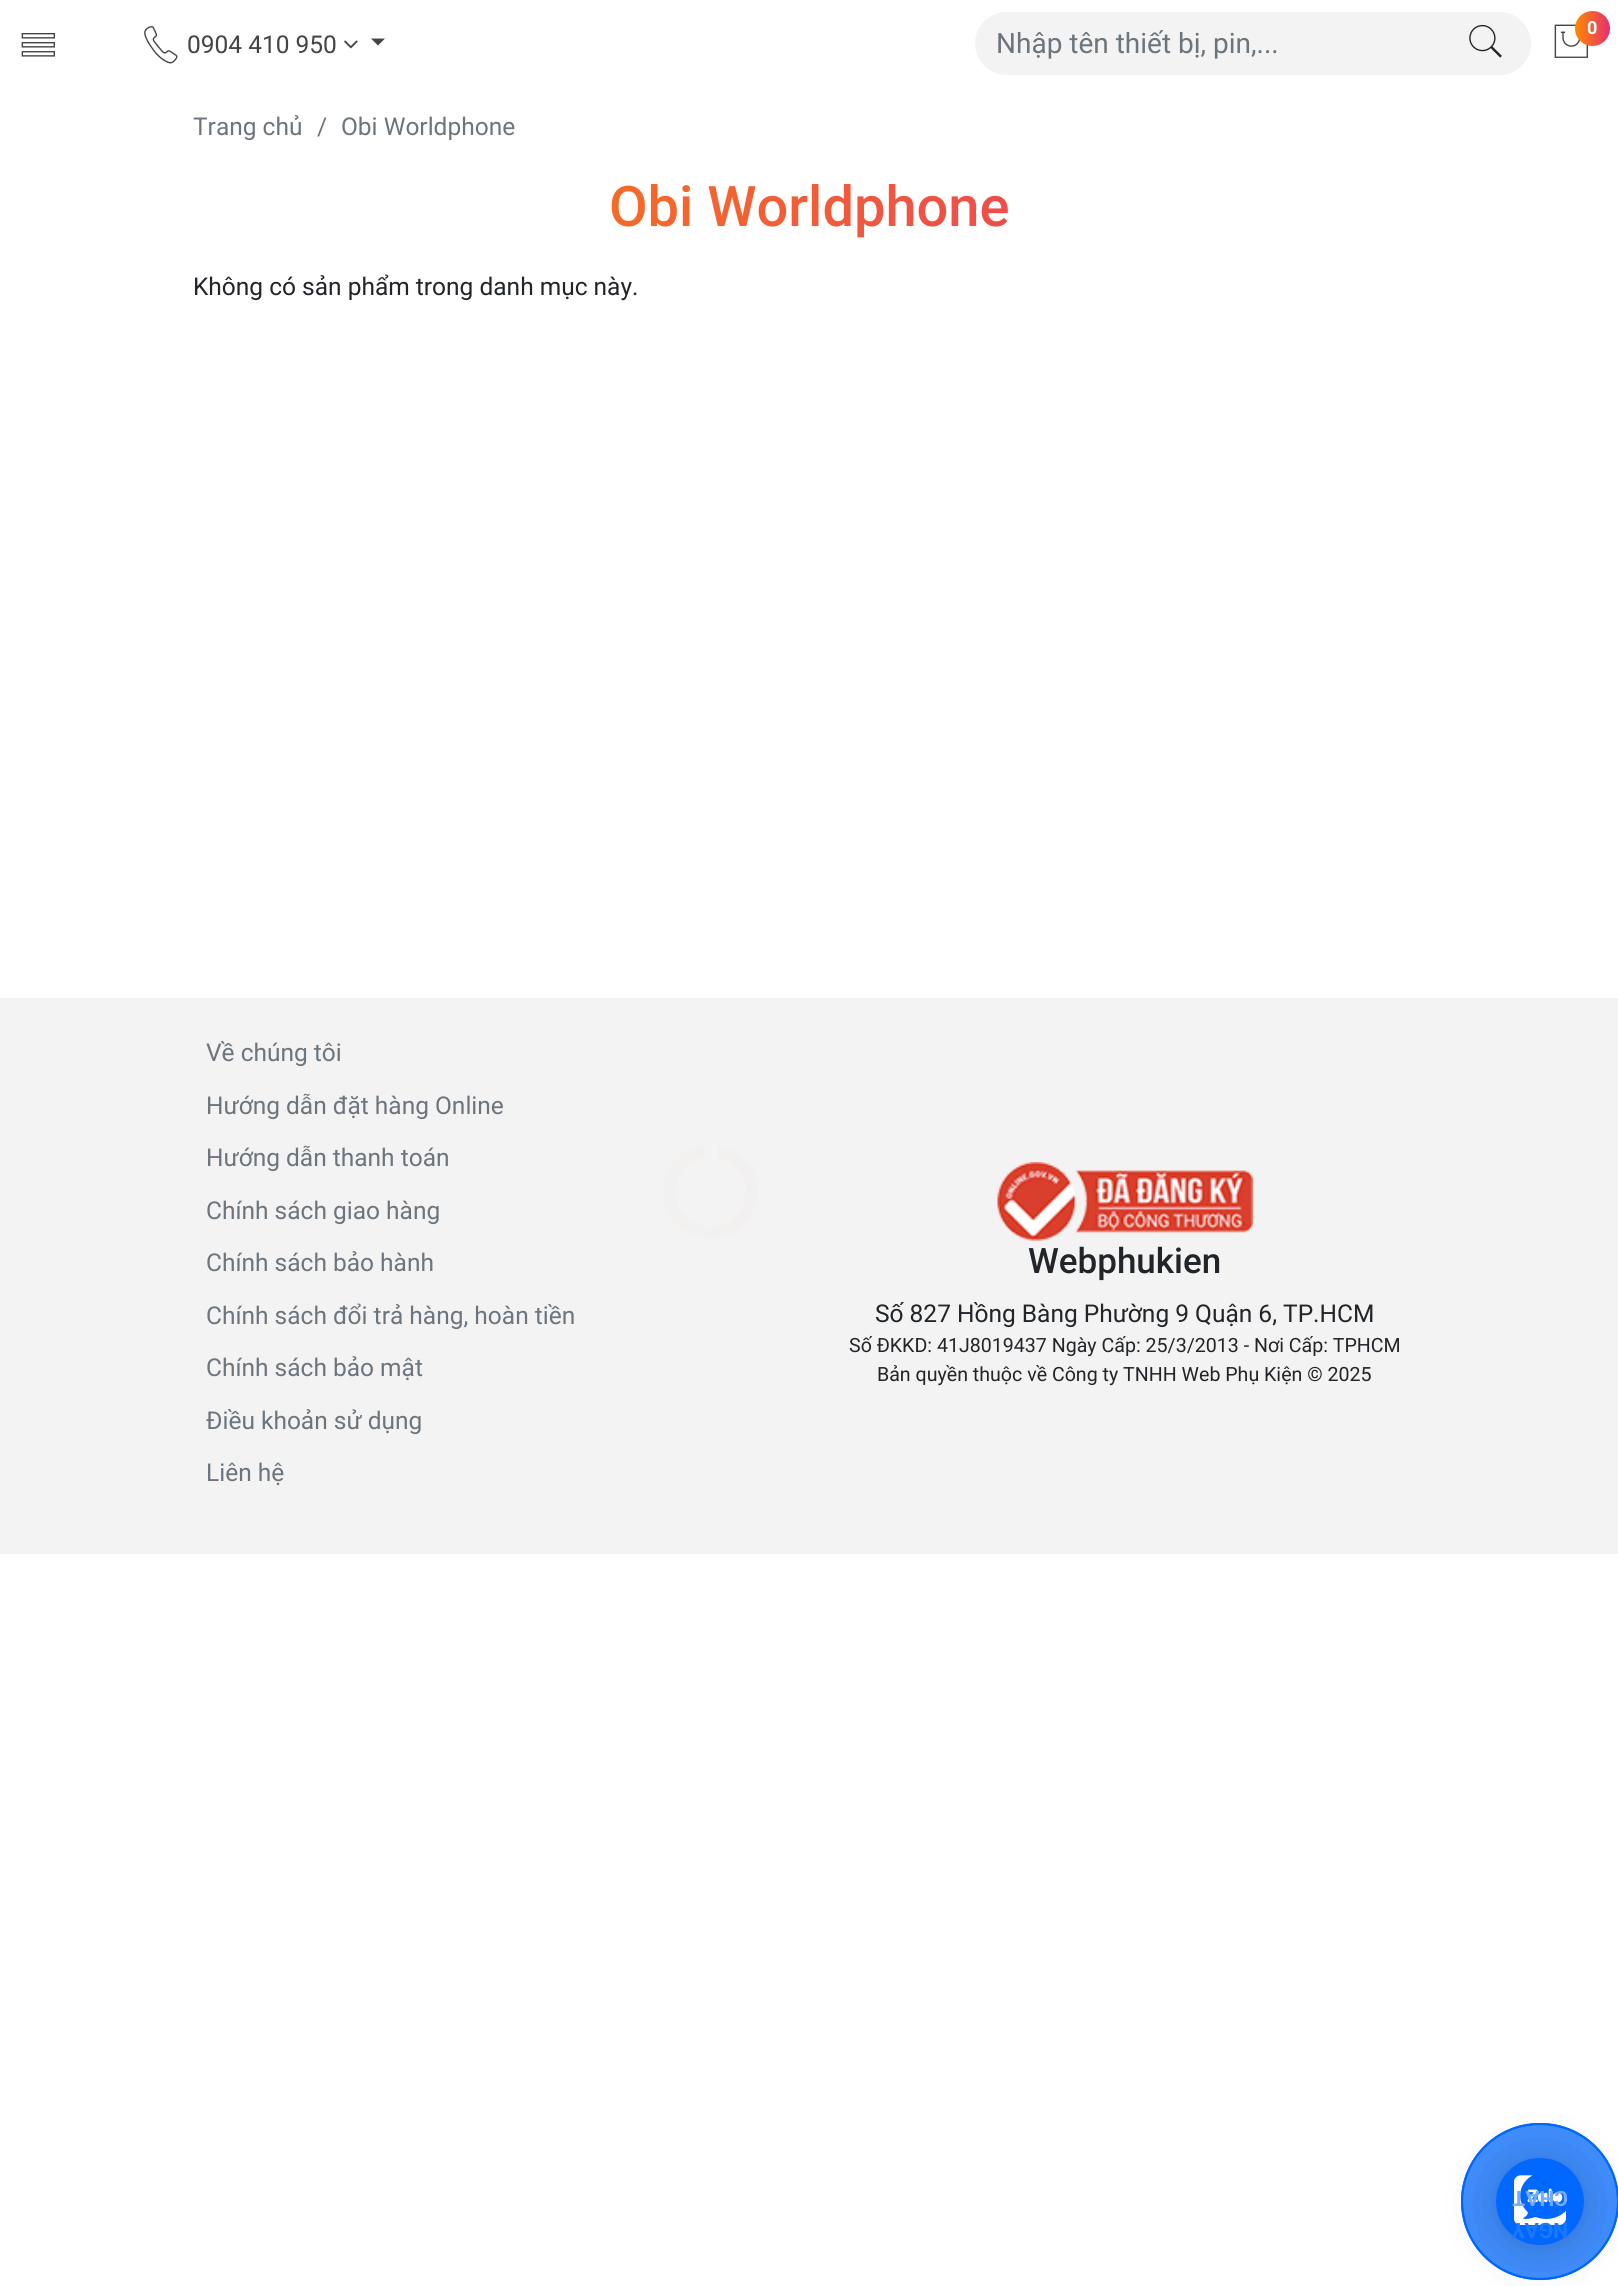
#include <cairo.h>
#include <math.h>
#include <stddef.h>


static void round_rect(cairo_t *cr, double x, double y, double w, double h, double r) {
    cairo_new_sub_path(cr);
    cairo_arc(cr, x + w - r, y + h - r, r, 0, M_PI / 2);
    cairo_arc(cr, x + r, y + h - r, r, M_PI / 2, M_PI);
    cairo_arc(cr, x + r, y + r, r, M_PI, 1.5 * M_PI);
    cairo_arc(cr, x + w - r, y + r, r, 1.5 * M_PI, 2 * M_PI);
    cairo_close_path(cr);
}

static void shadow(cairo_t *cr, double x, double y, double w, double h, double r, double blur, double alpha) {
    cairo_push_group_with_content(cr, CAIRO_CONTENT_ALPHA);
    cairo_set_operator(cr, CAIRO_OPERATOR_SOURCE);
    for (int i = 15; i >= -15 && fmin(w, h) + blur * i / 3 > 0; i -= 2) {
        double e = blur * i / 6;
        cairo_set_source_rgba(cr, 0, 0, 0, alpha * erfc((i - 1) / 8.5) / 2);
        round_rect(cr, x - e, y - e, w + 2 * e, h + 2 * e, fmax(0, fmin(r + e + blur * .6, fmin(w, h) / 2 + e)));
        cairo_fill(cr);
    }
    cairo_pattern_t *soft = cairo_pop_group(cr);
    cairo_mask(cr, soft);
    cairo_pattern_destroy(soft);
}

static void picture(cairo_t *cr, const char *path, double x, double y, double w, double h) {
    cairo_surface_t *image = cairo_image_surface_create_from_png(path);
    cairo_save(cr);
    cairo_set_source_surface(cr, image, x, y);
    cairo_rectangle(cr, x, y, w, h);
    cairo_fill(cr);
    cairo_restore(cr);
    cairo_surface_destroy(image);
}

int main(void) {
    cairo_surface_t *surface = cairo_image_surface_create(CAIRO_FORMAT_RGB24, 1618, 2286);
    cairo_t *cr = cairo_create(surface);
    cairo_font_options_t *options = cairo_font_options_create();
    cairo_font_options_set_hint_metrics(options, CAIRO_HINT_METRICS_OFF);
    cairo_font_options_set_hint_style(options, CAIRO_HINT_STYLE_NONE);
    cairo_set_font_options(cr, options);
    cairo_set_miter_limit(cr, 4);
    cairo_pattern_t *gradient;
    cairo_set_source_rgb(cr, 1, 1, 1);
    cairo_paint(cr);
    picture(cr, "img1.png", 21, 33, 34, 24);
    picture(cr, "img2.png", 144, 26, 34, 38);
    cairo_select_font_face(cr, "Roboto", CAIRO_FONT_SLANT_NORMAL, CAIRO_FONT_WEIGHT_NORMAL);
    cairo_set_font_size(cr, 24.5);
    cairo_set_source_rgb(cr, 0.267, 0.267, 0.267);
    cairo_move_to(cr, 187, 53);
    cairo_show_text(cr, "0904 410 950");
    picture(cr, "img3.png", 344, 40, 14, 9);
    cairo_new_path(cr);
    cairo_move_to(cr, 371, 38.5);
    cairo_line_to(cr, 385, 38.5);
    cairo_line_to(cr, 378, 45.5);
    cairo_close_path(cr);
    cairo_fill(cr);
    picture(cr, "img4.png", 1554, 24, 34, 34);
    gradient = cairo_pattern_create_linear(1575, 28, 1610, 28);
    cairo_pattern_add_color_stop_rgba(gradient, 0, 1, 0.541, 0, 1);
    cairo_pattern_add_color_stop_rgba(gradient, 1, 0.898, 0.18, 0.443, 1);
    cairo_set_source(cr, gradient);
    cairo_pattern_destroy(gradient);
    cairo_arc(cr, 1592.5, 28.5, 17.5, 0, 2 * M_PI);
    cairo_fill(cr);
    cairo_select_font_face(cr, "Roboto", CAIRO_FONT_SLANT_NORMAL, CAIRO_FONT_WEIGHT_BOLD);
    cairo_set_font_size(cr, 18);
    cairo_set_source_rgb(cr, 1, 1, 1);
    cairo_move_to(cr, 1587, 34);
    cairo_show_text(cr, "0");
    cairo_set_source_rgb(cr, 0.953, 0.953, 0.953);
    round_rect(cr, 975, 12, 556, 63, 31.5);
    cairo_fill(cr);
    cairo_select_font_face(cr, "Roboto", CAIRO_FONT_SLANT_NORMAL, CAIRO_FONT_WEIGHT_NORMAL);
    cairo_set_font_size(cr, 28);
    cairo_set_source_rgb(cr, 0.424, 0.459, 0.49);
    cairo_move_to(cr, 996, 53);
    cairo_show_text(cr, "Nhập tên thiết bị, pin,...");
    picture(cr, "img5.png", 1469, 24, 33, 34);
    cairo_set_font_size(cr, 24.5);
    cairo_move_to(cr, 193, 135);
    cairo_show_text(cr, "Trang chủ");
    cairo_move_to(cr, 317, 135);
    cairo_show_text(cr, "/");
    cairo_move_to(cr, 341, 135);
    cairo_show_text(cr, "Obi Worldphone");
    cairo_select_font_face(cr, "Roboto Medium", CAIRO_FONT_SLANT_NORMAL, CAIRO_FONT_WEIGHT_NORMAL);
    cairo_set_font_size(cr, 56);
    gradient = cairo_pattern_create_linear(193, 207, 1425, 207);
    cairo_pattern_add_color_stop_rgba(gradient, 0, 1, 0.541, 0, 1);
    cairo_pattern_add_color_stop_rgba(gradient, 1, 0.898, 0.18, 0.443, 1);
    cairo_set_source(cr, gradient);
    cairo_pattern_destroy(gradient);
    cairo_move_to(cr, 609, 226);
    cairo_show_text(cr, "Obi Worldphone");
    cairo_select_font_face(cr, "Roboto", CAIRO_FONT_SLANT_NORMAL, CAIRO_FONT_WEIGHT_NORMAL);
    cairo_set_font_size(cr, 24.5);
    cairo_set_source_rgb(cr, 0.129, 0.145, 0.161);
    cairo_move_to(cr, 193, 295);
    cairo_show_text(cr, "Không có sản phẩm trong danh mục này.");
    cairo_set_source_rgb(cr, 0.953, 0.953, 0.953);
    cairo_rectangle(cr, 0, 998, 1618, 556);
    cairo_fill(cr);
    cairo_set_source_rgb(cr, 0.424, 0.459, 0.49);
    cairo_move_to(cr, 206, 1061);
    cairo_show_text(cr, "Về chúng tôi");
    cairo_move_to(cr, 206, 1114);
    cairo_show_text(cr, "Hướng dẫn đặt hàng Online");
    cairo_move_to(cr, 206, 1166);
    cairo_show_text(cr, "Hướng dẫn thanh toán");
    cairo_move_to(cr, 206, 1219);
    cairo_show_text(cr, "Chính sách giao hàng");
    cairo_move_to(cr, 206, 1271);
    cairo_show_text(cr, "Chính sách bảo hành");
    cairo_move_to(cr, 206, 1324);
    cairo_show_text(cr, "Chính sách đổi trả hàng, hoàn tiền");
    cairo_move_to(cr, 206, 1376);
    cairo_show_text(cr, "Chính sách bảo mật");
    cairo_move_to(cr, 206, 1429);
    cairo_show_text(cr, "Điều khoản sử dụng");
    cairo_move_to(cr, 206, 1481);
    cairo_show_text(cr, "Liên hệ");
    picture(cr, "img6.png", 997, 1162, 256, 79);
    cairo_select_font_face(cr, "Roboto Medium", CAIRO_FONT_SLANT_NORMAL, CAIRO_FONT_WEIGHT_NORMAL);
    cairo_set_font_size(cr, 35);
    cairo_set_source_rgb(cr, 0.129, 0.145, 0.161);
    cairo_move_to(cr, 1028, 1273);
    cairo_show_text(cr, "Webphukien");
    cairo_select_font_face(cr, "Roboto", CAIRO_FONT_SLANT_NORMAL, CAIRO_FONT_WEIGHT_NORMAL);
    cairo_set_font_size(cr, 24.5);
    cairo_move_to(cr, 875, 1322);
    cairo_show_text(cr, "Số 827 Hồng Bàng Phường 9 Quận 6, TP.HCM");
    cairo_set_font_size(cr, 19.6);
    cairo_move_to(cr, 849, 1352);
    cairo_show_text(cr, "Số ĐKKD: 41J8019437 Ngày Cấp: 25/3/2013 - Nơi Cấp: TPHCM");
    cairo_move_to(cr, 877, 1381);
    cairo_show_text(cr, "Bản quyền thuộc về Công ty TNHH Web Phụ Kiện © 2025");
    gradient = cairo_pattern_create_linear(648, 1193, 774, 1193);
    cairo_pattern_add_color_stop_rgba(gradient, 0, 0.953, 0.945, 0.937, 1);
    cairo_pattern_add_color_stop_rgba(gradient, 1, 0.953, 0.941, 0.945, 1);
    cairo_set_source(cr, gradient);
    cairo_pattern_destroy(gradient);
    cairo_new_path(cr);
    cairo_move_to(cr, 758, 1192);
    cairo_curve_to(cr, 758, 1200, 756, 1207, 752, 1214);
    cairo_curve_to(cr, 732, 1251, 678, 1245, 665, 1206);
    cairo_curve_to(cr, 662, 1195, 663, 1183, 667, 1173);
    cairo_curve_to(cr, 674, 1158, 688, 1147, 704, 1145);
    cairo_line_to(cr, 704, 1157);
    cairo_curve_to(cr, 682, 1162, 670, 1185, 678, 1205);
    cairo_curve_to(cr, 692, 1238, 742, 1231, 745, 1195);
    cairo_curve_to(cr, 746, 1188, 745, 1181, 741, 1175);
    cairo_curve_to(cr, 736, 1166, 727, 1159, 718, 1157);
    cairo_line_to(cr, 718, 1145);
    cairo_curve_to(cr, 740, 1148, 758, 1169, 758, 1192);
    cairo_close_path(cr);
    cairo_fill(cr);
    cairo_set_source_rgb(cr, 0.502, 0.706, 1);
    round_rect(cr, 1462, 2124, 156, 155, 77.5);
    cairo_fill_preserve(cr);
    cairo_set_source_rgb(cr, 0, 0.408, 1);
    cairo_stroke(cr);
    cairo_set_source_rgba(cr, 0, 0.408, 1, 0.5);
    round_rect(cr, 1462, 2124, 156, 155, 77.5);
    cairo_fill_preserve(cr);
    cairo_set_source_rgb(cr, 0, 0.408, 1);
    cairo_stroke(cr);
    cairo_set_source_rgb(cr, 0, 0, 0);
    shadow(cr, 1496, 2161, 88, 88, 44, 28, 0.16);
    shadow(cr, 1496, 2160, 88, 87, 43.5, 5, 0.06);
    cairo_set_source_rgb(cr, 0, 0.408, 1);
    round_rect(cr, 1496, 2158, 88, 87, 43.5);
    cairo_fill(cr);
    picture(cr, "img7.png", 1514, 2175, 52, 50);
    cairo_select_font_face(cr, "Roboto", CAIRO_FONT_SLANT_NORMAL, CAIRO_FONT_WEIGHT_BOLD);
    cairo_set_font_size(cr, 21);
    cairo_set_source_rgb(cr, 0.451, 0.675, 1);
    cairo_save(cr);
    cairo_translate(cr, 1568, 2191);
    cairo_rotate(cr, 180 * M_PI / 180);
    cairo_move_to(cr, 0, 0);
    cairo_show_text(cr, "CHAT");
    cairo_restore(cr);
    cairo_set_source_rgb(cr, 0.11, 0.475, 1);
    cairo_save(cr);
    cairo_translate(cr, 1568, 2223);
    cairo_rotate(cr, 180 * M_PI / 180);
    cairo_move_to(cr, 0, 0);
    cairo_show_text(cr, "NGAY");
    cairo_restore(cr);
    cairo_surface_write_to_png(surface, "page.png");
    cairo_font_options_destroy(options);
    cairo_destroy(cr);
    cairo_surface_destroy(surface);
    return 0;
}
